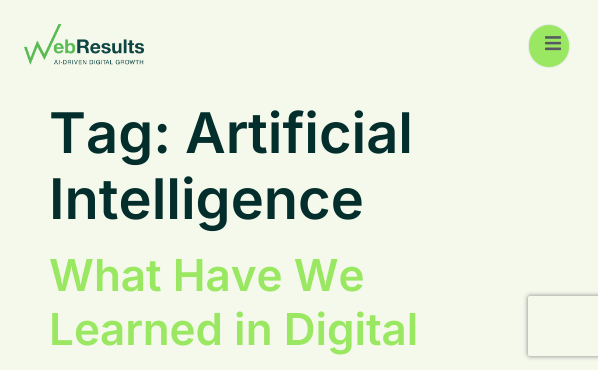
#include <cairo.h>
#include <math.h>
#include <stddef.h>


static void round_rect(cairo_t *cr, double x, double y, double w, double h, double r) {
    cairo_new_sub_path(cr);
    cairo_arc(cr, x + w - r, y + h - r, r, 0, M_PI / 2);
    cairo_arc(cr, x + r, y + h - r, r, M_PI / 2, M_PI);
    cairo_arc(cr, x + r, y + r, r, M_PI, 1.5 * M_PI);
    cairo_arc(cr, x + w - r, y + r, r, 1.5 * M_PI, 2 * M_PI);
    cairo_close_path(cr);
}

static void shadow(cairo_t *cr, double x, double y, double w, double h, double r, double blur, double alpha) {
    cairo_push_group_with_content(cr, CAIRO_CONTENT_ALPHA);
    cairo_set_operator(cr, CAIRO_OPERATOR_SOURCE);
    for (int i = 15; i >= -15 && fmin(w, h) + blur * i / 3 > 0; i -= 2) {
        double e = blur * i / 6;
        cairo_set_source_rgba(cr, 0, 0, 0, alpha * erfc((i - 1) / 8.5) / 2);
        round_rect(cr, x - e, y - e, w + 2 * e, h + 2 * e, fmax(0, fmin(r + e + blur * .6, fmin(w, h) / 2 + e)));
        cairo_fill(cr);
    }
    cairo_pattern_t *soft = cairo_pop_group(cr);
    cairo_mask(cr, soft);
    cairo_pattern_destroy(soft);
}

static void picture(cairo_t *cr, const char *path, double x, double y, double w, double h) {
    cairo_surface_t *image = cairo_image_surface_create_from_png(path);
    cairo_save(cr);
    cairo_set_source_surface(cr, image, x, y);
    cairo_rectangle(cr, x, y, w, h);
    cairo_fill(cr);
    cairo_restore(cr);
    cairo_surface_destroy(image);
}

int main(void) {
    cairo_surface_t *surface = cairo_image_surface_create(CAIRO_FORMAT_RGB24, 598, 370);
    cairo_t *cr = cairo_create(surface);
    cairo_font_options_t *options = cairo_font_options_create();
    cairo_font_options_set_hint_metrics(options, CAIRO_HINT_METRICS_OFF);
    cairo_font_options_set_hint_style(options, CAIRO_HINT_STYLE_NONE);
    cairo_set_font_options(cr, options);
    cairo_set_miter_limit(cr, 4);
    cairo_set_source_rgb(cr, 0.957, 0.973, 0.918);
    cairo_paint(cr);
    picture(cr, "img1.png", 24, 24, 120, 41);
    cairo_set_source_rgb(cr, 0.604, 0.906, 0.38);
    round_rect(cr, 528.5, 24.5, 41, 43, 20.5);
    cairo_fill_preserve(cr);
    cairo_set_source_rgb(cr, 0.918, 0.918, 0.922);
    cairo_set_line_width(cr, 1);
    cairo_stroke(cr);
    picture(cr, "img2.png", 545, 36, 16, 15);
    cairo_select_font_face(cr, "Inter SemiBold", CAIRO_FONT_SLANT_NORMAL, CAIRO_FONT_WEIGHT_NORMAL);
    cairo_set_font_size(cr, 56);
    cairo_set_source_rgb(cr, 0.012, 0.18, 0.173);
    cairo_move_to(cr, 49, 153);
    cairo_show_text(cr, "Tag: Artificial");
    cairo_move_to(cr, 49, 219);
    cairo_show_text(cr, "Intelligence");
    cairo_set_font_size(cr, 44);
    cairo_set_source_rgb(cr, 0.604, 0.906, 0.38);
    cairo_move_to(cr, 49, 291);
    cairo_show_text(cr, "What Have We");
    cairo_move_to(cr, 49, 345);
    cairo_show_text(cr, "Learned in Digital");
    cairo_save(cr);
    cairo_set_fill_rule(cr, CAIRO_FILL_RULE_EVEN_ODD);
    cairo_new_path(cr);
    cairo_move_to(cr, 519, 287);
    cairo_line_to(cr, 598, 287);
    cairo_line_to(cr, 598, 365);
    cairo_line_to(cr, 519, 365);
    cairo_close_path(cr);
    cairo_move_to(cr, 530, 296);
    cairo_line_to(cr, 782, 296);
    cairo_curve_to(cr, 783, 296, 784, 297, 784, 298);
    cairo_line_to(cr, 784, 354);
    cairo_curve_to(cr, 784, 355, 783, 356, 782, 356);
    cairo_line_to(cr, 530, 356);
    cairo_curve_to(cr, 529, 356, 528, 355, 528, 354);
    cairo_line_to(cr, 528, 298);
    cairo_curve_to(cr, 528, 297, 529, 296, 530, 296);
    cairo_close_path(cr);
    cairo_clip(cr);
    cairo_set_source_rgb(cr, 0.502, 0.502, 0.502);
    shadow(cr, 528, 296, 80, 60, 2, 2.5, 1);
    cairo_restore(cr);
    cairo_surface_write_to_png(surface, "page.png");
    cairo_font_options_destroy(options);
    cairo_destroy(cr);
    cairo_surface_destroy(surface);
    return 0;
}
